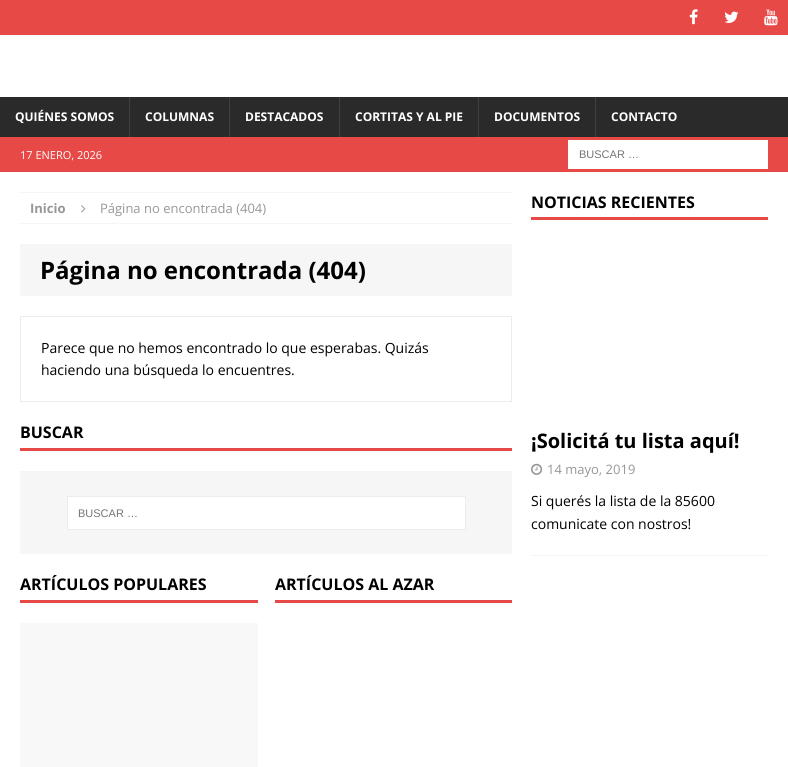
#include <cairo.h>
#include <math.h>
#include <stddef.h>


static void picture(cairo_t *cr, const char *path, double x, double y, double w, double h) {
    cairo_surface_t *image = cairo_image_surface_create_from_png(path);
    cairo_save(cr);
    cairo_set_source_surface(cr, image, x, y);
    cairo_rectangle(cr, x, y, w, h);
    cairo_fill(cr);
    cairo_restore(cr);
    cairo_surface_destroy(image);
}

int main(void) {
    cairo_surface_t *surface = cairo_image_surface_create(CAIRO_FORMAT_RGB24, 788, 767);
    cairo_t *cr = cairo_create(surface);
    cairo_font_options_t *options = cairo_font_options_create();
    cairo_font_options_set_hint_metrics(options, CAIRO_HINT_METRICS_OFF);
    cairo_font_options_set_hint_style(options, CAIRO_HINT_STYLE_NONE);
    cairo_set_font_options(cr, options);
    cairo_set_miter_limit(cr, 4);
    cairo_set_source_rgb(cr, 0.902, 0.286, 0.275);
    cairo_paint(cr);
    picture(cr, "img1.png", 689, 9, 9, 16);
    picture(cr, "img2.png", 724, 11, 15, 12);
    picture(cr, "img3.png", 764, 9, 14, 17);
    cairo_set_source_rgb(cr, 1, 1, 1);
    cairo_rectangle(cr, 0, 35, 788, 62);
    cairo_fill(cr);
    cairo_set_source_rgb(cr, 0.165, 0.165, 0.165);
    cairo_rectangle(cr, 0, 97, 788, 40);
    cairo_fill(cr);
    cairo_select_font_face(cr, "Open Sans", CAIRO_FONT_SLANT_NORMAL, CAIRO_FONT_WEIGHT_BOLD);
    cairo_set_font_size(cr, 12);
    cairo_set_source_rgb(cr, 1, 1, 1);
    cairo_move_to(cr, 15, 121);
    cairo_show_text(cr, "QUIÉNES SOMOS");
    cairo_set_source_rgb(cr, 0.247, 0.247, 0.247);
    cairo_rectangle(cr, 129, 97, 1, 40);
    cairo_fill(cr);
    cairo_set_source_rgb(cr, 1, 1, 1);
    cairo_move_to(cr, 145, 121);
    cairo_show_text(cr, "COLUMNAS");
    cairo_set_source_rgb(cr, 0.247, 0.247, 0.247);
    cairo_rectangle(cr, 229, 97, 1, 40);
    cairo_fill(cr);
    cairo_set_source_rgb(cr, 1, 1, 1);
    cairo_move_to(cr, 245, 121);
    cairo_show_text(cr, "DESTACADOS");
    cairo_set_source_rgb(cr, 0.247, 0.247, 0.247);
    cairo_rectangle(cr, 339, 97, 1, 40);
    cairo_fill(cr);
    cairo_set_source_rgb(cr, 1, 1, 1);
    cairo_move_to(cr, 355, 121);
    cairo_show_text(cr, "CORTITAS Y AL PIE");
    cairo_set_source_rgb(cr, 0.247, 0.247, 0.247);
    cairo_rectangle(cr, 478, 97, 1, 40);
    cairo_fill(cr);
    cairo_set_source_rgb(cr, 1, 1, 1);
    cairo_move_to(cr, 494, 121);
    cairo_show_text(cr, "DOCUMENTOS");
    cairo_set_source_rgb(cr, 0.247, 0.247, 0.247);
    cairo_rectangle(cr, 595, 97, 1, 40);
    cairo_fill(cr);
    cairo_set_source_rgb(cr, 1, 1, 1);
    cairo_move_to(cr, 611, 121);
    cairo_show_text(cr, "CONTACTO");
    cairo_select_font_face(cr, "Open Sans", CAIRO_FONT_SLANT_NORMAL, CAIRO_FONT_WEIGHT_NORMAL);
    cairo_set_font_size(cr, 11);
    cairo_move_to(cr, 20, 159);
    cairo_show_text(cr, "17 ENERO, 2026");
    cairo_rectangle(cr, 568, 140, 200, 29);
    cairo_fill(cr);
    cairo_select_font_face(cr, "Liberation Sans", CAIRO_FONT_SLANT_NORMAL, CAIRO_FONT_WEIGHT_NORMAL);
    cairo_set_source_rgb(cr, 0.459, 0.459, 0.459);
    cairo_move_to(cr, 579, 158);
    cairo_show_text(cr, "BUSCAR …");
    cairo_set_source_rgb(cr, 1, 1, 1);
    cairo_rectangle(cr, 0, 172, 788, 595);
    cairo_fill(cr);
    cairo_new_path(cr);
    cairo_move_to(cr, 20, 192.5);
    cairo_line_to(cr, 512, 192.5);
    cairo_set_source_rgb(cr, 0.922, 0.922, 0.922);
    cairo_set_line_width(cr, 1);
    cairo_set_dash(cr, (double[]){1, 1}, 2, 0);
    cairo_stroke(cr);
    cairo_new_path(cr);
    cairo_move_to(cr, 20, 223.5);
    cairo_line_to(cr, 512, 223.5);
    cairo_stroke(cr);
    cairo_select_font_face(cr, "Open Sans", CAIRO_FONT_SLANT_NORMAL, CAIRO_FONT_WEIGHT_BOLD);
    cairo_set_font_size(cr, 13);
    cairo_set_source_rgb(cr, 0.592, 0.592, 0.592);
    cairo_move_to(cr, 30, 213);
    cairo_show_text(cr, "Inicio");
    picture(cr, "img4.png", 81, 205, 5, 8);
    cairo_select_font_face(cr, "Open Sans", CAIRO_FONT_SLANT_NORMAL, CAIRO_FONT_WEIGHT_NORMAL);
    cairo_move_to(cr, 100, 213);
    cairo_show_text(cr, "Página no encontrada (404)");
    cairo_set_source_rgb(cr, 0.961, 0.961, 0.961);
    cairo_rectangle(cr, 20, 244, 492, 52);
    cairo_fill(cr);
    cairo_select_font_face(cr, "Open Sans", CAIRO_FONT_SLANT_NORMAL, CAIRO_FONT_WEIGHT_BOLD);
    cairo_set_font_size(cr, 24);
    cairo_set_source_rgb(cr, 0, 0, 0);
    cairo_move_to(cr, 40, 279);
    cairo_show_text(cr, "Página no encontrada (404)");
    cairo_rectangle(cr, 20.5, 316.5, 491, 85);
    cairo_set_source_rgb(cr, 0.922, 0.922, 0.922);
    cairo_set_dash(cr, NULL, 0, 0);
    cairo_stroke(cr);
    cairo_select_font_face(cr, "Open Sans", CAIRO_FONT_SLANT_NORMAL, CAIRO_FONT_WEIGHT_NORMAL);
    cairo_set_font_size(cr, 14);
    cairo_set_source_rgb(cr, 0, 0, 0);
    cairo_move_to(cr, 41, 353);
    cairo_show_text(cr, "Parece que no hemos encontrado lo que esperabas. Quizás");
    cairo_move_to(cr, 41, 375);
    cairo_show_text(cr, "haciendo una búsqueda lo encuentres.");
    cairo_set_source_rgb(cr, 0.902, 0.286, 0.275);
    cairo_rectangle(cr, 20, 448, 492, 3);
    cairo_fill(cr);
    cairo_select_font_face(cr, "Open Sans", CAIRO_FONT_SLANT_NORMAL, CAIRO_FONT_WEIGHT_BOLD);
    cairo_set_font_size(cr, 16);
    cairo_set_source_rgb(cr, 0, 0, 0);
    cairo_move_to(cr, 20, 438);
    cairo_show_text(cr, "BUSCAR");
    cairo_set_source_rgb(cr, 0.961, 0.961, 0.961);
    cairo_rectangle(cr, 20, 471, 492, 83);
    cairo_fill(cr);
    cairo_set_source_rgb(cr, 1, 1, 1);
    cairo_rectangle(cr, 67.5, 496.5, 398, 33);
    cairo_fill_preserve(cr);
    cairo_set_source_rgb(cr, 0.922, 0.922, 0.922);
    cairo_stroke(cr);
    cairo_select_font_face(cr, "Liberation Sans", CAIRO_FONT_SLANT_NORMAL, CAIRO_FONT_WEIGHT_NORMAL);
    cairo_set_font_size(cr, 11);
    cairo_set_source_rgb(cr, 0.459, 0.459, 0.459);
    cairo_move_to(cr, 78, 517);
    cairo_show_text(cr, "BUSCAR …");
    cairo_set_source_rgb(cr, 0.902, 0.286, 0.275);
    cairo_rectangle(cr, 20, 600, 238, 3);
    cairo_fill(cr);
    cairo_select_font_face(cr, "Open Sans", CAIRO_FONT_SLANT_NORMAL, CAIRO_FONT_WEIGHT_BOLD);
    cairo_set_font_size(cr, 16);
    cairo_set_source_rgb(cr, 0, 0, 0);
    cairo_move_to(cr, 20, 590);
    cairo_show_text(cr, "ARTÍCULOS POPULARES");
    cairo_set_source_rgb(cr, 0.969, 0.969, 0.969);
    cairo_rectangle(cr, 20, 623, 238, 144);
    cairo_fill(cr);
    cairo_set_source_rgb(cr, 0.902, 0.286, 0.275);
    cairo_rectangle(cr, 275, 600, 237, 3);
    cairo_fill(cr);
    cairo_set_source_rgb(cr, 0, 0, 0);
    cairo_move_to(cr, 275, 590);
    cairo_show_text(cr, "ARTÍCULOS AL AZAR");
    cairo_set_source_rgb(cr, 0.902, 0.286, 0.275);
    cairo_rectangle(cr, 531, 217, 237, 3);
    cairo_fill(cr);
    cairo_set_source_rgb(cr, 0, 0, 0);
    cairo_move_to(cr, 531, 208);
    cairo_show_text(cr, "NOTICIAS RECIENTES");
    cairo_new_path(cr);
    cairo_move_to(cr, 531, 555.5);
    cairo_line_to(cr, 768, 555.5);
    cairo_set_source_rgb(cr, 0.922, 0.922, 0.922);
    cairo_set_dash(cr, (double[]){1, 1}, 2, 0);
    cairo_stroke(cr);
    cairo_set_font_size(cr, 20);
    cairo_set_source_rgb(cr, 0, 0, 0);
    cairo_move_to(cr, 531, 448);
    cairo_show_text(cr, "¡Solicitá tu lista aquí!");
    picture(cr, "img5.png", 531, 463, 12, 12);
    cairo_select_font_face(cr, "Open Sans", CAIRO_FONT_SLANT_NORMAL, CAIRO_FONT_WEIGHT_NORMAL);
    cairo_set_font_size(cr, 13);
    cairo_set_source_rgb(cr, 0.592, 0.592, 0.592);
    cairo_move_to(cr, 547, 474);
    cairo_show_text(cr, "14 mayo, 2019");
    cairo_set_font_size(cr, 14);
    cairo_set_source_rgb(cr, 0, 0, 0);
    cairo_move_to(cr, 531, 506);
    cairo_show_text(cr, "Si querés la lista de la 85600");
    cairo_move_to(cr, 531, 529);
    cairo_show_text(cr, "comunicate con nostros!");
    cairo_surface_write_to_png(surface, "page.png");
    cairo_font_options_destroy(options);
    cairo_destroy(cr);
    cairo_surface_destroy(surface);
    return 0;
}
